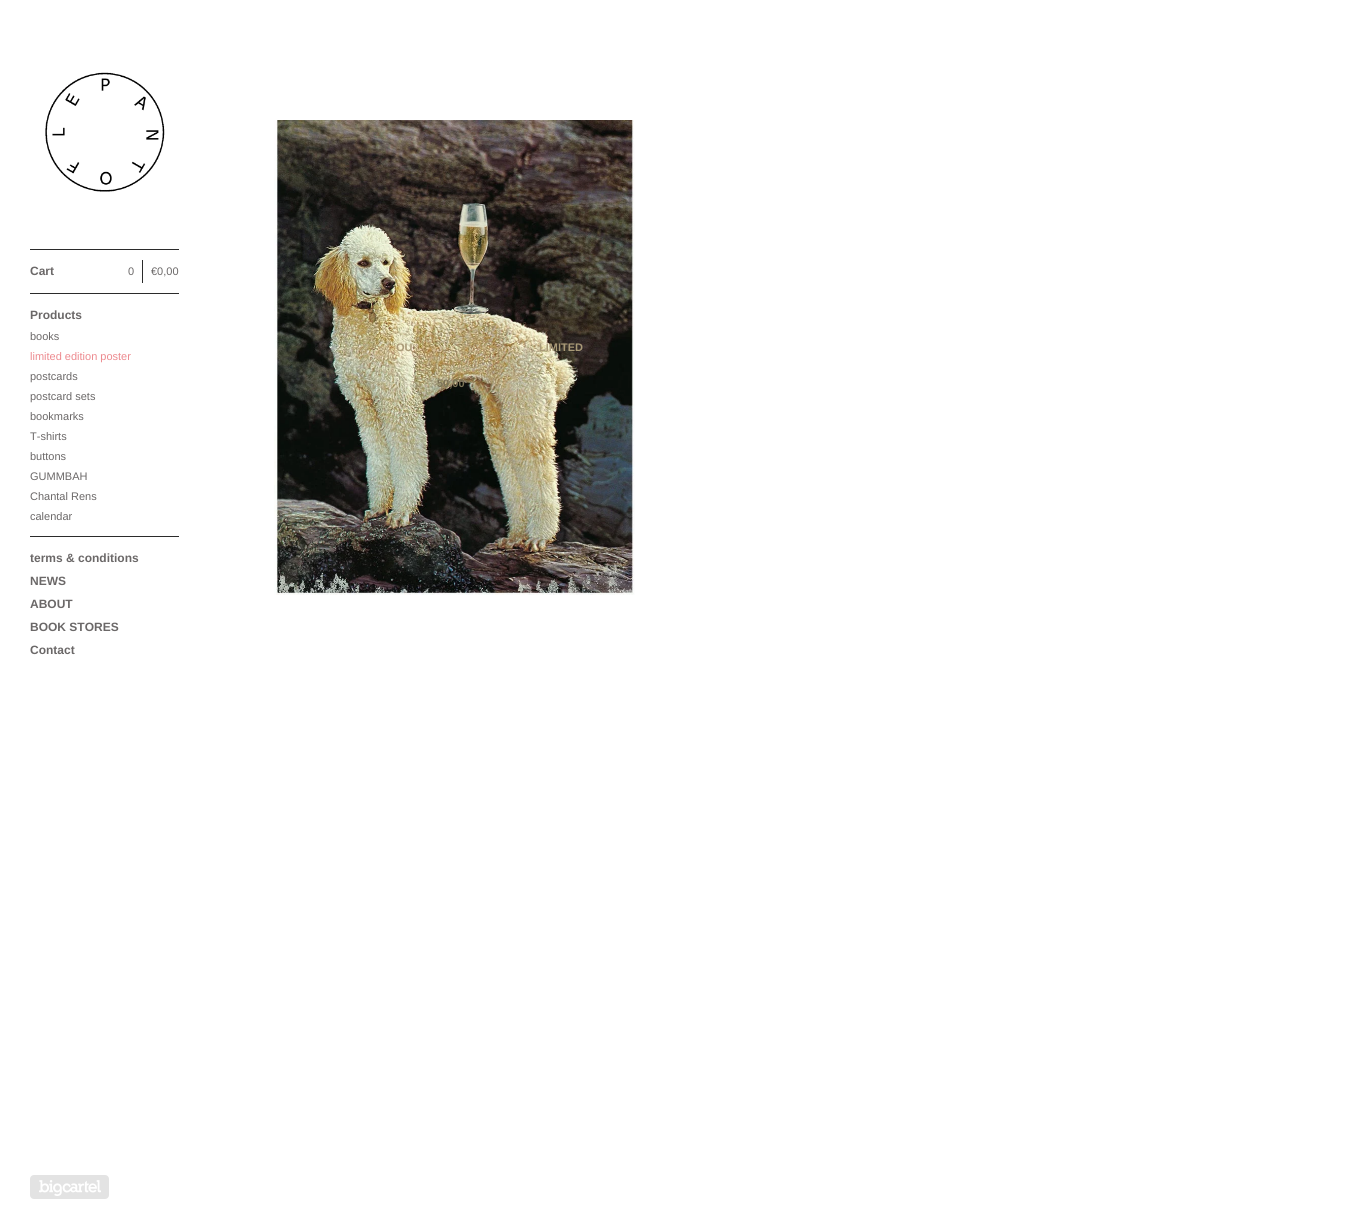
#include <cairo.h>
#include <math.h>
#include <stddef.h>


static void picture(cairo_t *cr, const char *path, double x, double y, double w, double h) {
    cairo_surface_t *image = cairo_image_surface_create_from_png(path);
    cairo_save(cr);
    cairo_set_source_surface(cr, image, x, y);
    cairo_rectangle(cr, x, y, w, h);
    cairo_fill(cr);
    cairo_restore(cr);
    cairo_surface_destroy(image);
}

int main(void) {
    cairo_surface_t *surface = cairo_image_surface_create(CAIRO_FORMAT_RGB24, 1369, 1229);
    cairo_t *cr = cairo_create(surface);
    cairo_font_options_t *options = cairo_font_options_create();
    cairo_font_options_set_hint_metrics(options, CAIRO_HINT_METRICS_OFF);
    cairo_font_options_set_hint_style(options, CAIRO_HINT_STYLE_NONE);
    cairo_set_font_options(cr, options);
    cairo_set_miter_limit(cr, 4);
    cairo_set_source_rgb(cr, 1, 1, 1);
    cairo_paint(cr);
    picture(cr, "img1.png", 45, 72, 120, 120);
    cairo_set_source_rgb(cr, 0.169, 0.169, 0.169);
    cairo_rectangle(cr, 30, 249, 149, 1);
    cairo_fill(cr);
    cairo_select_font_face(cr, "Liberation Sans", CAIRO_FONT_SLANT_NORMAL, CAIRO_FONT_WEIGHT_BOLD);
    cairo_set_font_size(cr, 12);
    cairo_set_source_rgb(cr, 0.42, 0.408, 0.408);
    cairo_move_to(cr, 30, 275);
    cairo_show_text(cr, "Cart");
    cairo_select_font_face(cr, "Liberation Sans", CAIRO_FONT_SLANT_NORMAL, CAIRO_FONT_WEIGHT_NORMAL);
    cairo_set_font_size(cr, 11);
    cairo_move_to(cr, 128, 275);
    cairo_show_text(cr, "0");
    cairo_set_source_rgb(cr, 0.169, 0.169, 0.169);
    cairo_rectangle(cr, 142, 260, 1, 23);
    cairo_fill(cr);
    cairo_set_source_rgb(cr, 0.42, 0.408, 0.408);
    cairo_move_to(cr, 151, 275);
    cairo_show_text(cr, "€0,00");
    cairo_set_source_rgb(cr, 0.169, 0.169, 0.169);
    cairo_rectangle(cr, 30, 293, 149, 1);
    cairo_fill(cr);
    cairo_select_font_face(cr, "Liberation Sans", CAIRO_FONT_SLANT_NORMAL, CAIRO_FONT_WEIGHT_BOLD);
    cairo_set_font_size(cr, 12);
    cairo_set_source_rgb(cr, 0.42, 0.408, 0.408);
    cairo_move_to(cr, 30, 319);
    cairo_show_text(cr, "Products");
    cairo_select_font_face(cr, "Liberation Sans", CAIRO_FONT_SLANT_NORMAL, CAIRO_FONT_WEIGHT_NORMAL);
    cairo_set_font_size(cr, 11);
    cairo_move_to(cr, 30, 340);
    cairo_show_text(cr, "books");
    cairo_set_source_rgb(cr, 0.929, 0.541, 0.561);
    cairo_move_to(cr, 30, 360);
    cairo_show_text(cr, "limited edition poster");
    cairo_set_source_rgb(cr, 0.42, 0.408, 0.408);
    cairo_move_to(cr, 30, 380);
    cairo_show_text(cr, "postcards");
    cairo_move_to(cr, 30, 400);
    cairo_show_text(cr, "postcard sets");
    cairo_move_to(cr, 30, 420);
    cairo_show_text(cr, "bookmarks");
    cairo_move_to(cr, 30, 440);
    cairo_show_text(cr, "T-shirts");
    cairo_move_to(cr, 30, 460);
    cairo_show_text(cr, "buttons");
    cairo_move_to(cr, 30, 480);
    cairo_show_text(cr, "GUMMBAH");
    cairo_move_to(cr, 30, 500);
    cairo_show_text(cr, "Chantal Rens");
    cairo_move_to(cr, 30, 520);
    cairo_show_text(cr, "calendar");
    cairo_set_source_rgb(cr, 0.169, 0.169, 0.169);
    cairo_rectangle(cr, 30, 536, 149, 1);
    cairo_fill(cr);
    cairo_select_font_face(cr, "Liberation Sans", CAIRO_FONT_SLANT_NORMAL, CAIRO_FONT_WEIGHT_BOLD);
    cairo_set_font_size(cr, 12);
    cairo_set_source_rgb(cr, 0.42, 0.408, 0.408);
    cairo_move_to(cr, 30, 562);
    cairo_show_text(cr, "terms & conditions");
    cairo_move_to(cr, 30, 585);
    cairo_show_text(cr, "NEWS");
    cairo_move_to(cr, 30, 608);
    cairo_show_text(cr, "ABOUT");
    cairo_move_to(cr, 30, 631);
    cairo_show_text(cr, "BOOK STORES");
    cairo_move_to(cr, 30, 654);
    cairo_show_text(cr, "Contact");
    picture(cr, "img2.png", 30, 1175, 79, 24);
    picture(cr, "img3.png", 274, 120, 361, 475);
    cairo_set_font_size(cr, 11);
    cairo_set_source_rgb(cr, 0.663, 0.604, 0.467);
    cairo_move_to(cr, 396, 351);
    cairo_show_text(cr, "OU");
    cairo_move_to(cr, 497, 351);
    cairo_show_text(cr, ".");
    cairo_move_to(cr, 539, 351);
    cairo_show_text(cr, "LIMITED");
    cairo_set_source_rgb(cr, 0.486, 0.451, 0.341);
    cairo_move_to(cr, 437, 387);
    cairo_show_text(cr, "50,00");
    cairo_surface_write_to_png(surface, "page.png");
    cairo_font_options_destroy(options);
    cairo_destroy(cr);
    cairo_surface_destroy(surface);
    return 0;
}
